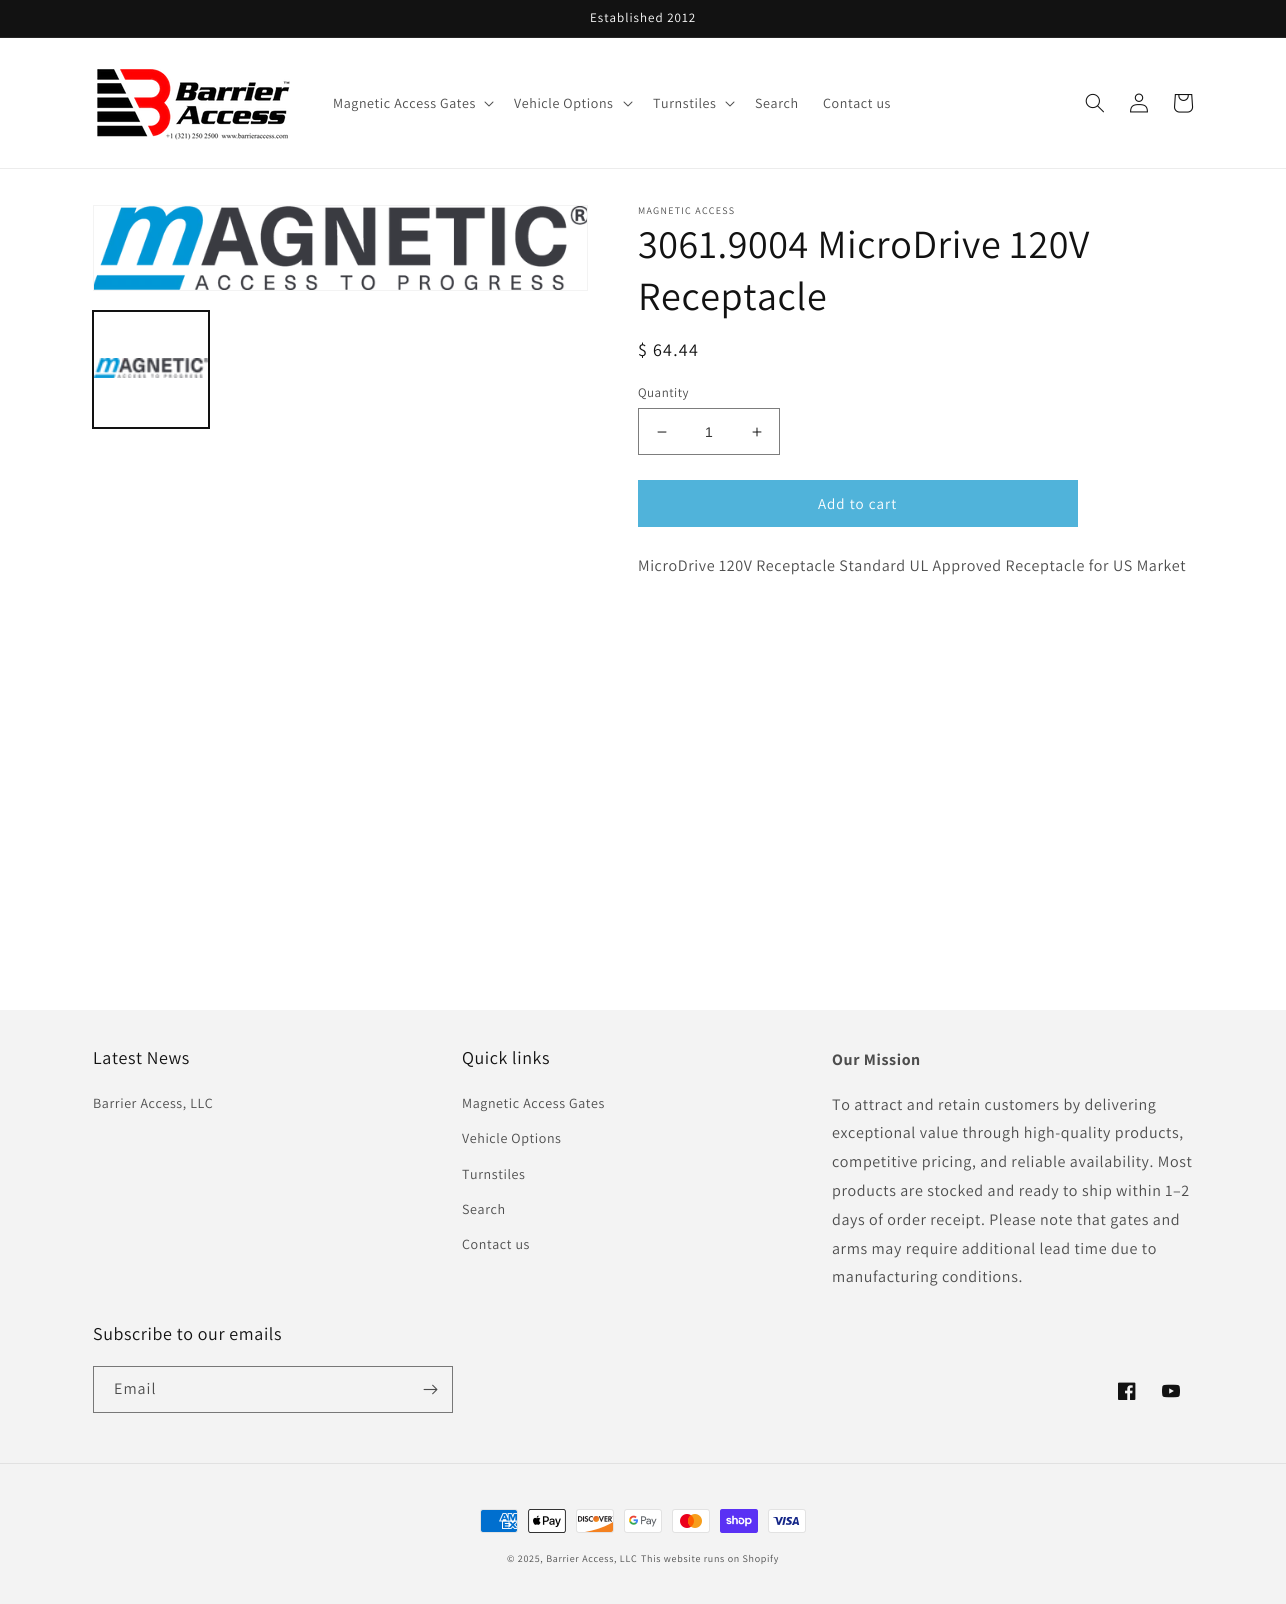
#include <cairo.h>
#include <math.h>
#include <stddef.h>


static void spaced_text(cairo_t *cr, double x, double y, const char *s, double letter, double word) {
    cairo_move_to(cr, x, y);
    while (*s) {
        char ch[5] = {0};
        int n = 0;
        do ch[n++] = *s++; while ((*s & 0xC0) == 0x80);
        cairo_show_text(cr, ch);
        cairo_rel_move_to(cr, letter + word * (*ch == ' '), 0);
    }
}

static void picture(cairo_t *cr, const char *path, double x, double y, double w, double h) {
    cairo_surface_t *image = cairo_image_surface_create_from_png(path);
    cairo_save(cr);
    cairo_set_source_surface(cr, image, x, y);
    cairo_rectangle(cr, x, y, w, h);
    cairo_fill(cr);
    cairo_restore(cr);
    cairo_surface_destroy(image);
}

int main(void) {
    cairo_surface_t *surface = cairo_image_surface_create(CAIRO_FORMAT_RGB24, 1286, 1604);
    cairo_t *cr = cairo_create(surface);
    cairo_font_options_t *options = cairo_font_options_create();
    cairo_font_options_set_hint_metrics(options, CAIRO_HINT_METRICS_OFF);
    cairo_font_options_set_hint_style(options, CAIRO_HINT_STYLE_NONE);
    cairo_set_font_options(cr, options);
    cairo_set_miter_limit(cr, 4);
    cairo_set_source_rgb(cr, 1, 1, 1);
    cairo_paint(cr);
    cairo_set_source_rgb(cr, 0.071, 0.071, 0.071);
    cairo_rectangle(cr, 0, 0, 1286, 37);
    cairo_fill(cr);
    cairo_set_source_rgb(cr, 0.145, 0.145, 0.145);
    cairo_rectangle(cr, 0, 37, 1286, 1);
    cairo_fill(cr);
    cairo_select_font_face(cr, "Assistant", CAIRO_FONT_SLANT_NORMAL, CAIRO_FONT_WEIGHT_NORMAL);
    cairo_set_font_size(cr, 13);
    cairo_set_source_rgb(cr, 1, 1, 1);
    spaced_text(cr, 590, 22, "Established 2012", 1, 0);
    cairo_set_source_rgb(cr, 0.925, 0.925, 0.925);
    cairo_rectangle(cr, 0, 168, 1286, 1);
    cairo_fill(cr);
    picture(cr, "img1.png", 97, 69, 193, 71);
    cairo_set_font_size(cr, 14);
    cairo_set_source_rgb(cr, 0.302, 0.302, 0.302);
    spaced_text(cr, 333, 108, "Magnetic Access Gates", 0.6, 0);
    picture(cr, "img2.png", 484, 101, 10, 6);
    spaced_text(cr, 514, 108, "Vehicle Options", 0.6, 0);
    picture(cr, "img2.png", 623, 101, 10, 6);
    spaced_text(cr, 653, 108, "Turnstiles", 0.6, 0);
    picture(cr, "img2.png", 725, 101, 10, 6);
    spaced_text(cr, 755, 108, "Search", 0.6, 0);
    spaced_text(cr, 823, 108, "Contact us", 0.6, 0);
    picture(cr, "img3.png", 1085, 93, 19, 20);
    picture(cr, "img4.png", 1130, 93, 18, 20);
    picture(cr, "img5.png", 1174, 94, 20, 19);
    cairo_rectangle(cr, 93.5, 205.5, 494, 85);
    cairo_set_source_rgb(cr, 0.953, 0.953, 0.953);
    cairo_set_line_width(cr, 1);
    cairo_stroke(cr);
    picture(cr, "img6.png", 94, 206, 493, 84);
    cairo_rectangle(cr, 92.5, 310.5, 117, 118);
    cairo_set_source_rgb(cr, 0.071, 0.071, 0.071);
    cairo_stroke(cr);
    cairo_rectangle(cr, 93.5, 311.5, 115, 116);
    cairo_stroke(cr);
    picture(cr, "img7.png", 94, 358, 114, 20);
    cairo_set_font_size(cr, 10);
    cairo_set_source_rgb(cr, 0.302, 0.302, 0.302);
    spaced_text(cr, 638, 214, "MAGNETIC ACCESS", 1.25, 0);
    cairo_set_font_size(cr, 40);
    cairo_set_source_rgb(cr, 0.071, 0.071, 0.071);
    spaced_text(cr, 638, 258, "3061.9004 MicroDrive 120V", 0.6, 0);
    spaced_text(cr, 638, 310, "Receptacle", 0.6, 0);
    cairo_set_font_size(cr, 18);
    spaced_text(cr, 638, 356, "$ 64.44", 1.25, 0);
    cairo_set_font_size(cr, 13);
    cairo_set_source_rgb(cr, 0.302, 0.302, 0.302);
    spaced_text(cr, 638, 397, "Quantity", 0.5, 0);
    picture(cr, "img8.png", 657, 431, 10, 2);
    picture(cr, "img9.png", 752, 427, 10, 10);
    cairo_rectangle(cr, 638.5, 408.5, 141, 46);
    cairo_set_source_rgb(cr, 0.49, 0.49, 0.49);
    cairo_stroke(cr);
    cairo_select_font_face(cr, "Liberation Sans", CAIRO_FONT_SLANT_NORMAL, CAIRO_FONT_WEIGHT_NORMAL);
    cairo_set_font_size(cr, 14);
    cairo_set_source_rgb(cr, 0.212, 0.212, 0.212);
    cairo_move_to(cr, 705, 437);
    cairo_show_text(cr, "1");
    cairo_set_source_rgb(cr, 0.314, 0.702, 0.855);
    cairo_rectangle(cr, 638, 480, 440, 47);
    cairo_fill(cr);
    cairo_select_font_face(cr, "Assistant", CAIRO_FONT_SLANT_NORMAL, CAIRO_FONT_WEIGHT_NORMAL);
    cairo_set_font_size(cr, 15);
    cairo_set_source_rgb(cr, 1, 1, 1);
    spaced_text(cr, 818, 509, "Add to cart", 1, 0);
    cairo_set_font_size(cr, 16);
    cairo_set_source_rgb(cr, 0.302, 0.302, 0.302);
    spaced_text(cr, 638, 571, "MicroDrive 120V Receptacle Standard UL Approved Receptacle for US Market", 0.6, 0);
    cairo_set_source_rgb(cr, 0.953, 0.953, 0.953);
    cairo_rectangle(cr, 0, 1010, 1286, 594);
    cairo_fill(cr);
    cairo_set_font_size(cr, 18);
    cairo_set_source_rgb(cr, 0.071, 0.071, 0.071);
    spaced_text(cr, 93, 1064, "Latest News", 0.6, 0);
    cairo_set_font_size(cr, 14);
    cairo_set_source_rgb(cr, 0.302, 0.302, 0.302);
    spaced_text(cr, 93, 1108, "Barrier Access, LLC", 0.6, 0);
    cairo_set_font_size(cr, 18);
    cairo_set_source_rgb(cr, 0.071, 0.071, 0.071);
    spaced_text(cr, 462, 1064, "Quick links", 0.6, 0);
    cairo_set_font_size(cr, 14);
    cairo_set_source_rgb(cr, 0.302, 0.302, 0.302);
    spaced_text(cr, 462, 1108, "Magnetic Access Gates", 0.6, 0);
    spaced_text(cr, 462, 1143, "Vehicle Options", 0.6, 0);
    spaced_text(cr, 462, 1179, "Turnstiles", 0.6, 0);
    spaced_text(cr, 462, 1214, "Search", 0.6, 0);
    spaced_text(cr, 462, 1249, "Contact us", 0.6, 0);
    cairo_select_font_face(cr, "Assistant", CAIRO_FONT_SLANT_NORMAL, CAIRO_FONT_WEIGHT_BOLD);
    cairo_set_font_size(cr, 16);
    spaced_text(cr, 832, 1065, "Our Mission", 0.6, 0);
    cairo_select_font_face(cr, "Assistant", CAIRO_FONT_SLANT_NORMAL, CAIRO_FONT_WEIGHT_NORMAL);
    spaced_text(cr, 832, 1110, "To attract and retain customers by delivering", 0.6, 0);
    spaced_text(cr, 832, 1138, "exceptional value through high-quality products,", 0.6, 0);
    spaced_text(cr, 832, 1167, "competitive pricing, and reliable availability. Most", 0.6, 0);
    spaced_text(cr, 832, 1196, "products are stocked and ready to ship within 1–2", 0.6, 0);
    spaced_text(cr, 832, 1225, "days of order receipt. Please note that gates and", 0.6, 0);
    spaced_text(cr, 832, 1254, "arms may require additional lead time due to", 0.6, 0);
    spaced_text(cr, 832, 1282, "manufacturing conditions.", 0.6, 0);
    cairo_set_font_size(cr, 18);
    cairo_set_source_rgb(cr, 0.071, 0.071, 0.071);
    spaced_text(cr, 93, 1340, "Subscribe to our emails", 0.6, 0);
    cairo_rectangle(cr, 93.5, 1366.5, 359, 46);
    cairo_set_source_rgb(cr, 0.467, 0.467, 0.467);
    cairo_stroke(cr);
    cairo_set_font_size(cr, 16);
    cairo_set_source_rgb(cr, 0.302, 0.302, 0.302);
    spaced_text(cr, 114, 1394, "Email", 1, 0);
    picture(cr, "img10.png", 423, 1384, 15, 11);
    picture(cr, "img11.png", 1118, 1382, 18, 18);
    picture(cr, "img12.png", 1162, 1384, 18, 14);
    cairo_set_source_rgb(cr, 0.882, 0.882, 0.882);
    cairo_rectangle(cr, 0, 1463, 1286, 1);
    cairo_fill(cr);
    picture(cr, "img13.png", 480, 1509, 38, 24);
    picture(cr, "img14.png", 528, 1509, 38, 24);
    picture(cr, "img15.png", 576, 1509, 38, 24);
    picture(cr, "img16.png", 624, 1509, 38, 24);
    picture(cr, "img17.png", 672, 1509, 38, 24);
    picture(cr, "img18.png", 720, 1509, 38, 24);
    picture(cr, "img19.png", 768, 1509, 38, 24);
    cairo_set_font_size(cr, 10);
    cairo_set_source_rgb(cr, 0.302, 0.302, 0.302);
    spaced_text(cr, 507, 1562, "© 2025, Barrier Access, LLC", 0.7, 0);
    spaced_text(cr, 641, 1562, "This website runs on Shopify", 0.7, 0);
    cairo_surface_write_to_png(surface, "page.png");
    cairo_font_options_destroy(options);
    cairo_destroy(cr);
    cairo_surface_destroy(surface);
    return 0;
}
